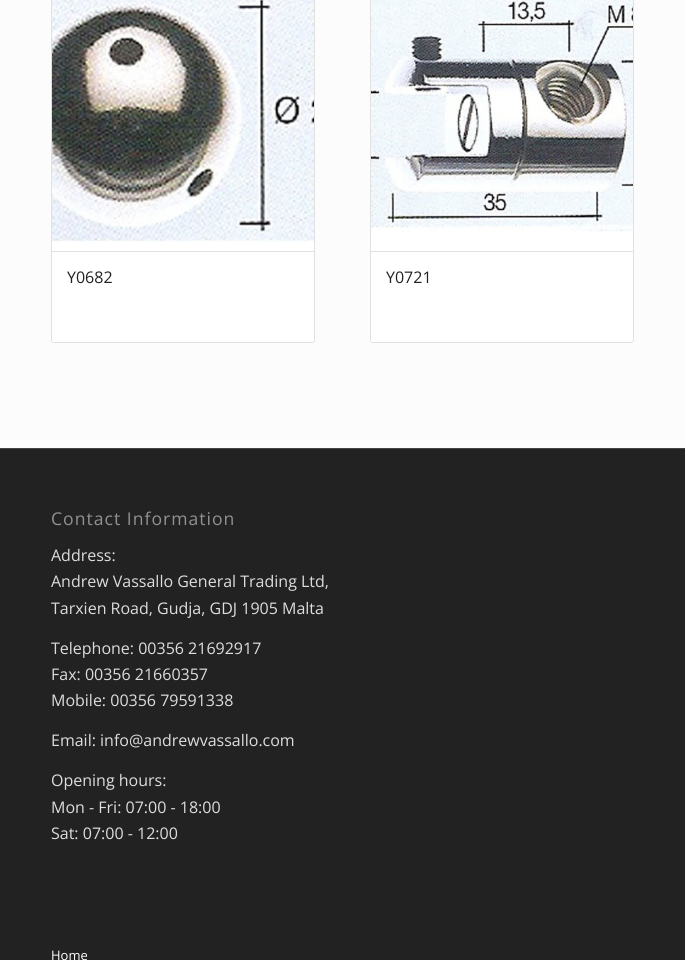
#include <cairo.h>
#include <math.h>
#include <stddef.h>


static void spaced_text(cairo_t *cr, double x, double y, const char *s, double letter, double word) {
    cairo_move_to(cr, x, y);
    while (*s) {
        char ch[5] = {0};
        int n = 0;
        do ch[n++] = *s++; while ((*s & 0xC0) == 0x80);
        cairo_show_text(cr, ch);
        cairo_rel_move_to(cr, letter + word * (*ch == ' '), 0);
    }
}

static void round_rect(cairo_t *cr, double x, double y, double w, double h, double r) {
    cairo_new_sub_path(cr);
    cairo_arc(cr, x + w - r, y + h - r, r, 0, M_PI / 2);
    cairo_arc(cr, x + r, y + h - r, r, M_PI / 2, M_PI);
    cairo_arc(cr, x + r, y + r, r, M_PI, 1.5 * M_PI);
    cairo_arc(cr, x + w - r, y + r, r, 1.5 * M_PI, 2 * M_PI);
    cairo_close_path(cr);
}

static void picture(cairo_t *cr, const char *path, double x, double y, double w, double h) {
    cairo_surface_t *image = cairo_image_surface_create_from_png(path);
    cairo_save(cr);
    cairo_set_source_surface(cr, image, x, y);
    cairo_rectangle(cr, x, y, w, h);
    cairo_fill(cr);
    cairo_restore(cr);
    cairo_surface_destroy(image);
}

int main(void) {
    cairo_surface_t *surface = cairo_image_surface_create(CAIRO_FORMAT_RGB24, 685, 960);
    cairo_t *cr = cairo_create(surface);
    cairo_font_options_t *options = cairo_font_options_create();
    cairo_font_options_set_hint_metrics(options, CAIRO_HINT_METRICS_OFF);
    cairo_font_options_set_hint_style(options, CAIRO_HINT_STYLE_NONE);
    cairo_set_font_options(cr, options);
    cairo_set_miter_limit(cr, 4);
    cairo_set_source_rgb(cr, 0.988, 0.988, 0.988);
    cairo_paint(cr);
    cairo_set_source_rgb(cr, 1, 1, 1);
    round_rect(cr, 51.5, -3.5, 263, 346, 2.5);
    cairo_fill_preserve(cr);
    cairo_set_source_rgb(cr, 0.882, 0.882, 0.882);
    cairo_set_line_width(cr, 1);
    cairo_stroke(cr);
    picture(cr, "img1.png", 52, 0, 262, 242);
    cairo_set_source_rgb(cr, 1, 1, 1);
    cairo_new_path(cr);
    cairo_move_to(cr, 52, 251);
    cairo_line_to(cr, 314, 251);
    cairo_line_to(cr, 314, 340);
    cairo_curve_to(cr, 314, 341, 313, 342, 312, 342);
    cairo_line_to(cr, 54, 342);
    cairo_curve_to(cr, 53, 342, 52, 341, 52, 340);
    cairo_close_path(cr);
    cairo_fill(cr);
    cairo_set_source_rgb(cr, 0.882, 0.882, 0.882);
    cairo_rectangle(cr, 52, 251, 262, 1);
    cairo_fill(cr);
    cairo_select_font_face(cr, "Open Sans", CAIRO_FONT_SLANT_NORMAL, CAIRO_FONT_WEIGHT_NORMAL);
    cairo_set_font_size(cr, 16);
    cairo_set_source_rgb(cr, 0.133, 0.133, 0.133);
    cairo_move_to(cr, 67, 283);
    cairo_show_text(cr, "Y0682");
    cairo_set_source_rgb(cr, 1, 1, 1);
    round_rect(cr, 370.5, -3.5, 263, 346, 2.5);
    cairo_fill_preserve(cr);
    cairo_set_source_rgb(cr, 0.882, 0.882, 0.882);
    cairo_stroke(cr);
    picture(cr, "img2.png", 371, 0, 262, 232);
    cairo_set_source_rgb(cr, 1, 1, 1);
    cairo_new_path(cr);
    cairo_move_to(cr, 371, 251);
    cairo_line_to(cr, 633, 251);
    cairo_line_to(cr, 633, 340);
    cairo_curve_to(cr, 633, 341, 632, 342, 631, 342);
    cairo_line_to(cr, 373, 342);
    cairo_curve_to(cr, 372, 342, 371, 341, 371, 340);
    cairo_close_path(cr);
    cairo_fill(cr);
    cairo_set_source_rgb(cr, 0.882, 0.882, 0.882);
    cairo_rectangle(cr, 371, 251, 262, 1);
    cairo_fill(cr);
    cairo_set_source_rgb(cr, 0.133, 0.133, 0.133);
    cairo_move_to(cr, 386, 283);
    cairo_show_text(cr, "Y0721");
    cairo_rectangle(cr, 0, 449, 685, 511);
    cairo_fill(cr);
    cairo_set_source_rgb(cr, 0.267, 0.267, 0.267);
    cairo_rectangle(cr, 0, 448, 685, 1);
    cairo_fill(cr);
    cairo_set_font_size(cr, 17.6);
    cairo_set_source_rgb(cr, 0.569, 0.569, 0.569);
    spaced_text(cr, 51, 525, "Contact Information", 1, 0);
    cairo_set_font_size(cr, 16);
    cairo_set_source_rgb(cr, 0.867, 0.867, 0.867);
    cairo_move_to(cr, 51, 561);
    cairo_show_text(cr, "Address:");
    cairo_move_to(cr, 51, 587);
    cairo_show_text(cr, "Andrew Vassallo General Trading Ltd,");
    cairo_move_to(cr, 51, 614);
    cairo_show_text(cr, "Tarxien Road, Gudja, GDJ 1905 Malta");
    cairo_move_to(cr, 51, 654);
    cairo_show_text(cr, "Telephone: 00356 21692917");
    cairo_move_to(cr, 51, 680);
    cairo_show_text(cr, "Fax: 00356 21660357");
    cairo_move_to(cr, 51, 706);
    cairo_show_text(cr, "Mobile: 00356 79591338");
    cairo_move_to(cr, 51, 746);
    cairo_show_text(cr, "Email: info@andrewvassallo.com");
    cairo_move_to(cr, 51, 786);
    cairo_show_text(cr, "Opening hours:");
    cairo_move_to(cr, 51, 813);
    cairo_show_text(cr, "Mon - Fri: 07:00 - 18:00");
    cairo_move_to(cr, 51, 839);
    cairo_show_text(cr, "Sat: 07:00 - 12:00");
    cairo_set_font_size(cr, 13);
    cairo_set_source_rgb(cr, 1, 1, 1);
    cairo_move_to(cr, 51, 960);
    cairo_show_text(cr, "Home");
    cairo_surface_write_to_png(surface, "page.png");
    cairo_font_options_destroy(options);
    cairo_destroy(cr);
    cairo_surface_destroy(surface);
    return 0;
}
